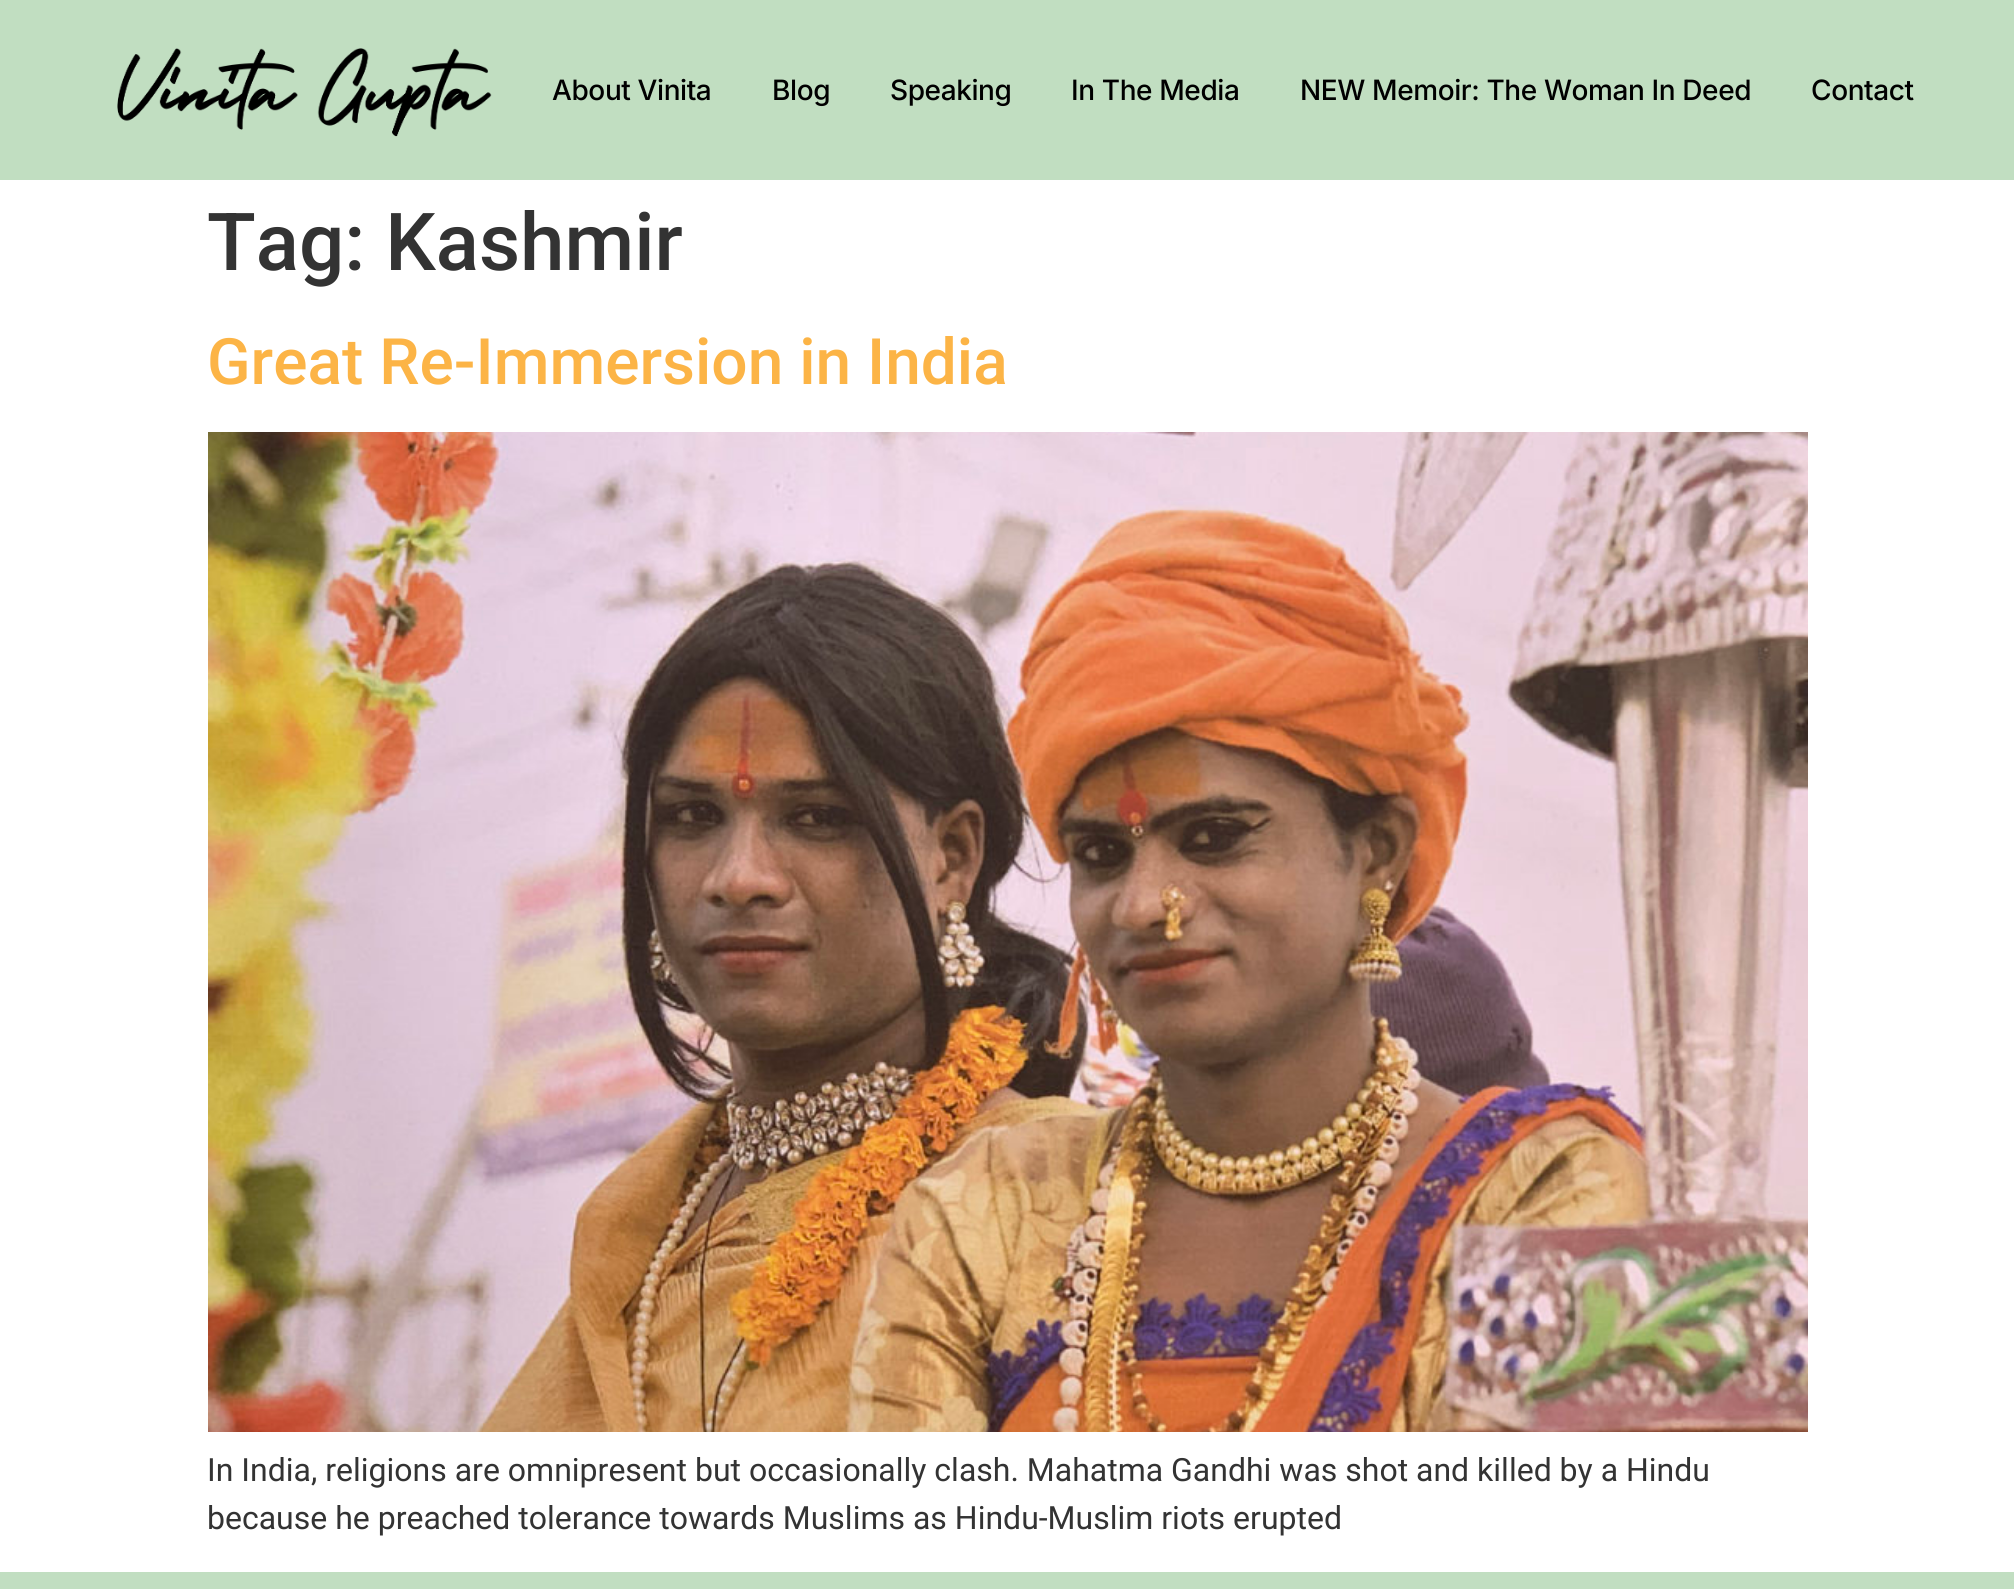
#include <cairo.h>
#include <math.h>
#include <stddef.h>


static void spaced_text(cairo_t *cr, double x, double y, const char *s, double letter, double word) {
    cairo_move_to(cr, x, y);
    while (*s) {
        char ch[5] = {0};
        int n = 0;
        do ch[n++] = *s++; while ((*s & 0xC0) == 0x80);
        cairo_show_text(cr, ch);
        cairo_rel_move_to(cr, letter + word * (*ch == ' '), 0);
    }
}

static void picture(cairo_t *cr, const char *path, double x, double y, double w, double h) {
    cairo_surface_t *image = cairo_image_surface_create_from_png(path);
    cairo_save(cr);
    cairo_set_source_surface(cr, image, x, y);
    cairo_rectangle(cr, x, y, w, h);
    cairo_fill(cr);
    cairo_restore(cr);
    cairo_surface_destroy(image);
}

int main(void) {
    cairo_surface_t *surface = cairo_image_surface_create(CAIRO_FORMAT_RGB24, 2014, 1589);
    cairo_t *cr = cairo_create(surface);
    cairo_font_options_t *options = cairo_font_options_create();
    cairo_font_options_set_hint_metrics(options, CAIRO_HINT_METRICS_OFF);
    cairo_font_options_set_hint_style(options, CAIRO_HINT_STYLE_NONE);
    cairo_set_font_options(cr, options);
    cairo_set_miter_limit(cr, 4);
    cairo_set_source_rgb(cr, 1, 1, 1);
    cairo_paint(cr);
    cairo_set_source_rgb(cr, 0.757, 0.871, 0.757);
    cairo_rectangle(cr, 0, 0, 2014, 180);
    cairo_fill(cr);
    picture(cr, "img1.png", 117, 48, 375, 89);
    cairo_select_font_face(cr, "Inter Medium", CAIRO_FONT_SLANT_NORMAL, CAIRO_FONT_WEIGHT_NORMAL);
    cairo_set_font_size(cr, 28);
    cairo_set_source_rgb(cr, 0, 0, 0);
    spaced_text(cr, 552, 100, "About Vinita", -0.4, 0);
    spaced_text(cr, 772, 100, "Blog", -0.4, 0);
    spaced_text(cr, 890, 100, "Speaking", -0.4, 0);
    spaced_text(cr, 1071, 100, "In The Media", -0.4, 0);
    spaced_text(cr, 1300, 100, "NEW Memoir: The Woman In Deed", -0.4, 0);
    spaced_text(cr, 1811, 100, "Contact", -0.4, 0);
    cairo_select_font_face(cr, "Roboto Medium", CAIRO_FONT_SLANT_NORMAL, CAIRO_FONT_WEIGHT_NORMAL);
    cairo_set_font_size(cr, 80);
    cairo_set_source_rgb(cr, 0.2, 0.2, 0.2);
    cairo_move_to(cr, 207, 270);
    cairo_show_text(cr, "Tag: Kashmir");
    cairo_set_font_size(cr, 64);
    cairo_set_source_rgb(cr, 0.988, 0.706, 0.275);
    cairo_move_to(cr, 207, 384);
    cairo_show_text(cr, "Great Re-Immersion in India");
    picture(cr, "img2.png", 208, 432, 1600, 1000);
    cairo_select_font_face(cr, "Roboto", CAIRO_FONT_SLANT_NORMAL, CAIRO_FONT_WEIGHT_NORMAL);
    cairo_set_font_size(cr, 32);
    cairo_set_source_rgb(cr, 0.2, 0.2, 0.2);
    cairo_move_to(cr, 207, 1481);
    cairo_show_text(cr, "In India, religions are omnipresent but occasionally clash. Mahatma Gandhi was shot and killed by a Hindu");
    cairo_move_to(cr, 207, 1529);
    cairo_show_text(cr, "because he preached tolerance towards Muslims as Hindu-Muslim riots erupted");
    cairo_set_source_rgb(cr, 0.757, 0.871, 0.757);
    cairo_rectangle(cr, 0, 1572, 2014, 17);
    cairo_fill(cr);
    cairo_surface_write_to_png(surface, "page.png");
    cairo_font_options_destroy(options);
    cairo_destroy(cr);
    cairo_surface_destroy(surface);
    return 0;
}
